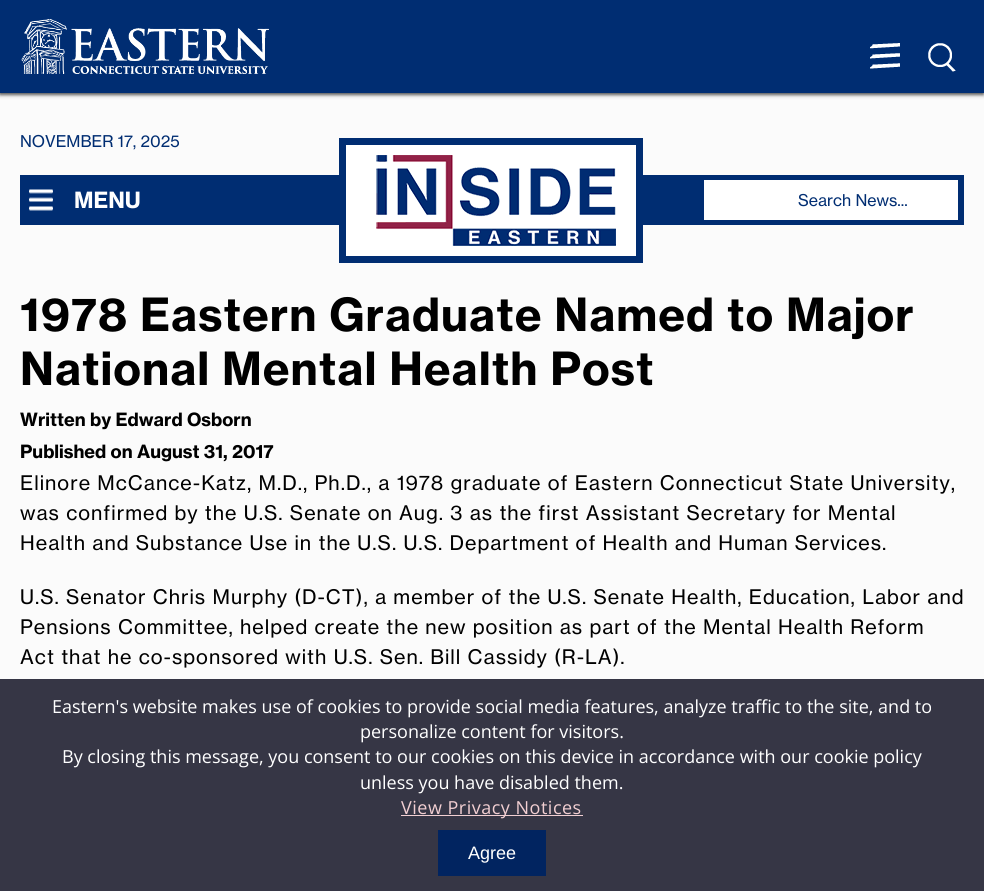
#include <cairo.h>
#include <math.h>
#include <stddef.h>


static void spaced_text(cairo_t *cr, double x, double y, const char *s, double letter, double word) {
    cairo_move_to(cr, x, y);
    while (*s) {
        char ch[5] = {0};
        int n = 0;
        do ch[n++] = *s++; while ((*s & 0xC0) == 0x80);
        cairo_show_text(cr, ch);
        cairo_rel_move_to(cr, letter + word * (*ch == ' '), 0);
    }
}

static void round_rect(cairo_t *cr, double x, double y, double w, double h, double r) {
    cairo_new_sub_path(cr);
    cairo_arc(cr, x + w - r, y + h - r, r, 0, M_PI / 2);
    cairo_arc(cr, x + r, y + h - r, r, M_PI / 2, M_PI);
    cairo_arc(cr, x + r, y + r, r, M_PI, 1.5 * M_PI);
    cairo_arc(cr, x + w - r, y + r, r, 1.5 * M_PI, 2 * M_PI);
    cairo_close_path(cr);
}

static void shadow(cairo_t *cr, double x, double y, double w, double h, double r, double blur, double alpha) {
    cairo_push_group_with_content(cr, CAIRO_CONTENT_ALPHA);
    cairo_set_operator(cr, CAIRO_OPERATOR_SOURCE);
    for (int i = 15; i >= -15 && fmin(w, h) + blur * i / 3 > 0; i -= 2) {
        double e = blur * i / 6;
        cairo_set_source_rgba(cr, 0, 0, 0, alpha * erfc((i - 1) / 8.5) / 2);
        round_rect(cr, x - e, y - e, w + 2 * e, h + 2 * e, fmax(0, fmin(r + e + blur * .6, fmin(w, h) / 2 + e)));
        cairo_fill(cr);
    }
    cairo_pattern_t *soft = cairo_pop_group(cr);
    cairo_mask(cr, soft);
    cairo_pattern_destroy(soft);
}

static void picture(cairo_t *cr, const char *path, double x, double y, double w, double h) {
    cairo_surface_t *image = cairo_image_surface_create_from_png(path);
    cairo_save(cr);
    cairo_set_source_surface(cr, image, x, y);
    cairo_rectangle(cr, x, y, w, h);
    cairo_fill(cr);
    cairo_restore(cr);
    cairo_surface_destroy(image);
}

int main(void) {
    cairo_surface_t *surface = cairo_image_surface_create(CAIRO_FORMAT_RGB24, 984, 891);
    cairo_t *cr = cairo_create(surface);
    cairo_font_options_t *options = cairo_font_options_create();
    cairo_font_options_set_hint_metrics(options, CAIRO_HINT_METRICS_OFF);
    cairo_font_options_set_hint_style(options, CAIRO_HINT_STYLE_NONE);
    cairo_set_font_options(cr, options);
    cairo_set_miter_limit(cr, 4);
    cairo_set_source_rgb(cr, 0.984, 0.984, 0.984);
    cairo_paint(cr);
    cairo_set_source_rgb(cr, 0.212, 0.212, 0.271);
    cairo_rectangle(cr, 0, 679, 984, 212);
    cairo_fill(cr);
    cairo_set_source_rgb(cr, 0, 0, 0);
    shadow(cr, 0, 1, 984, 93, 0, 2.5, 0.75);
    shadow(cr, -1, 2, 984, 93, 0, 1, 0.2);
    cairo_set_source_rgb(cr, 0, 0.176, 0.447);
    cairo_rectangle(cr, 0, 0, 984, 93);
    cairo_fill(cr);
    picture(cr, "img1.png", 21, 19, 248, 55);
    picture(cr, "img2.png", 870, 43, 30, 26);
    picture(cr, "img3.png", 928, 43, 28, 29);
    cairo_select_font_face(cr, "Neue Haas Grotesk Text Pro", CAIRO_FONT_SLANT_NORMAL, CAIRO_FONT_WEIGHT_NORMAL);
    cairo_set_font_size(cr, 16);
    cairo_move_to(cr, 20, 147);
    cairo_show_text(cr, "NOVEMBER 17, 2025");
    cairo_rectangle(cr, 20, 175, 944, 50);
    cairo_fill(cr);
    cairo_set_source_rgb(cr, 1, 1, 1);
    cairo_rectangle(cr, 342.5, 141.5, 297, 118);
    cairo_fill_preserve(cr);
    cairo_set_source_rgb(cr, 0, 0.176, 0.447);
    cairo_set_line_width(cr, 7);
    cairo_stroke(cr);
    picture(cr, "img4.png", 376, 155, 240, 91);
    picture(cr, "img5.png", 29, 189, 24, 22);
    cairo_select_font_face(cr, "Neue Haas Grotesk Text Pro", CAIRO_FONT_SLANT_NORMAL, CAIRO_FONT_WEIGHT_BOLD);
    cairo_set_font_size(cr, 22);
    cairo_set_source_rgb(cr, 1, 1, 1);
    cairo_move_to(cr, 74, 208);
    cairo_show_text(cr, "MENU");
    cairo_rectangle(cr, 704, 180, 254, 40);
    cairo_fill(cr);
    cairo_select_font_face(cr, "Neue Haas Grotesk Text Pro", CAIRO_FONT_SLANT_NORMAL, CAIRO_FONT_WEIGHT_NORMAL);
    cairo_set_font_size(cr, 16);
    cairo_set_source_rgb(cr, 0, 0.176, 0.447);
    cairo_move_to(cr, 798, 206);
    cairo_show_text(cr, "Search News...");
    cairo_select_font_face(cr, "Neue Haas Grotesk Text Pro", CAIRO_FONT_SLANT_NORMAL, CAIRO_FONT_WEIGHT_BOLD);
    cairo_set_font_size(cr, 45);
    cairo_set_source_rgb(cr, 0, 0, 0);
    spaced_text(cr, 20, 331, "1978 Eastern Graduate Named to Major", 1, 0);
    spaced_text(cr, 20, 385, "National Mental Health Post", 1, 0);
    cairo_set_font_size(cr, 18);
    cairo_move_to(cr, 20, 426);
    cairo_show_text(cr, "Written by Edward Osborn");
    cairo_move_to(cr, 20, 458);
    cairo_show_text(cr, "Published on August 31, 2017");
    cairo_select_font_face(cr, "Neue Haas Grotesk Text Pro", CAIRO_FONT_SLANT_NORMAL, CAIRO_FONT_WEIGHT_NORMAL);
    cairo_set_font_size(cr, 19.8);
    spaced_text(cr, 20, 490, "Elinore McCance-Katz, M.D., Ph.D., a 1978 graduate of Eastern Connecticut State University,", 1, 0);
    spaced_text(cr, 20, 520, "was confirmed by the U.S. Senate on Aug. 3 as the first Assistant Secretary for Mental", 1, 0);
    spaced_text(cr, 20, 550, "Health and Substance Use in the U.S. U.S. Department of Health and Human Services.", 1, 0);
    spaced_text(cr, 20, 604, "U.S. Senator Chris Murphy (D-CT), a member of the U.S. Senate Health, Education, Labor and", 1, 0);
    spaced_text(cr, 20, 634, "Pensions Committee, helped create the new position as part of the Mental Health Reform", 1, 0);
    spaced_text(cr, 20, 664, "Act that he co-sponsored with U.S. Sen. Bill Cassidy (R-LA).", 1, 0);
    cairo_select_font_face(cr, "Open Sans", CAIRO_FONT_SLANT_NORMAL, CAIRO_FONT_WEIGHT_NORMAL);
    cairo_set_font_size(cr, 18);
    cairo_set_source_rgb(cr, 1, 1, 1);
    cairo_move_to(cr, 52, 713);
    cairo_show_text(cr, "Eastern's website makes use of cookies to provide social media features, analyze traffic to the site, and to");
    cairo_move_to(cr, 360, 738);
    cairo_show_text(cr, "personalize content for visitors.");
    cairo_move_to(cr, 62, 763);
    cairo_show_text(cr, "By closing this message, you consent to our cookies on this device in accordance with our cookie policy");
    cairo_move_to(cr, 360, 789);
    cairo_show_text(cr, "unless you have disabled them.");
    cairo_set_source_rgb(cr, 0.949, 0.812, 0.824);
    cairo_rectangle(cr, 401, 815, 182, 1);
    cairo_fill(cr);
    spaced_text(cr, 401, 814, "View Privacy Notices", 0.5, 0);
    cairo_set_source_rgb(cr, 0.004, 0.141, 0.376);
    cairo_rectangle(cr, 438, 830, 108, 46);
    cairo_fill(cr);
    cairo_select_font_face(cr, "Liberation Sans", CAIRO_FONT_SLANT_NORMAL, CAIRO_FONT_WEIGHT_NORMAL);
    cairo_set_source_rgb(cr, 1, 1, 1);
    cairo_move_to(cr, 468, 859);
    cairo_show_text(cr, "Agree");
    cairo_surface_write_to_png(surface, "page.png");
    cairo_font_options_destroy(options);
    cairo_destroy(cr);
    cairo_surface_destroy(surface);
    return 0;
}
